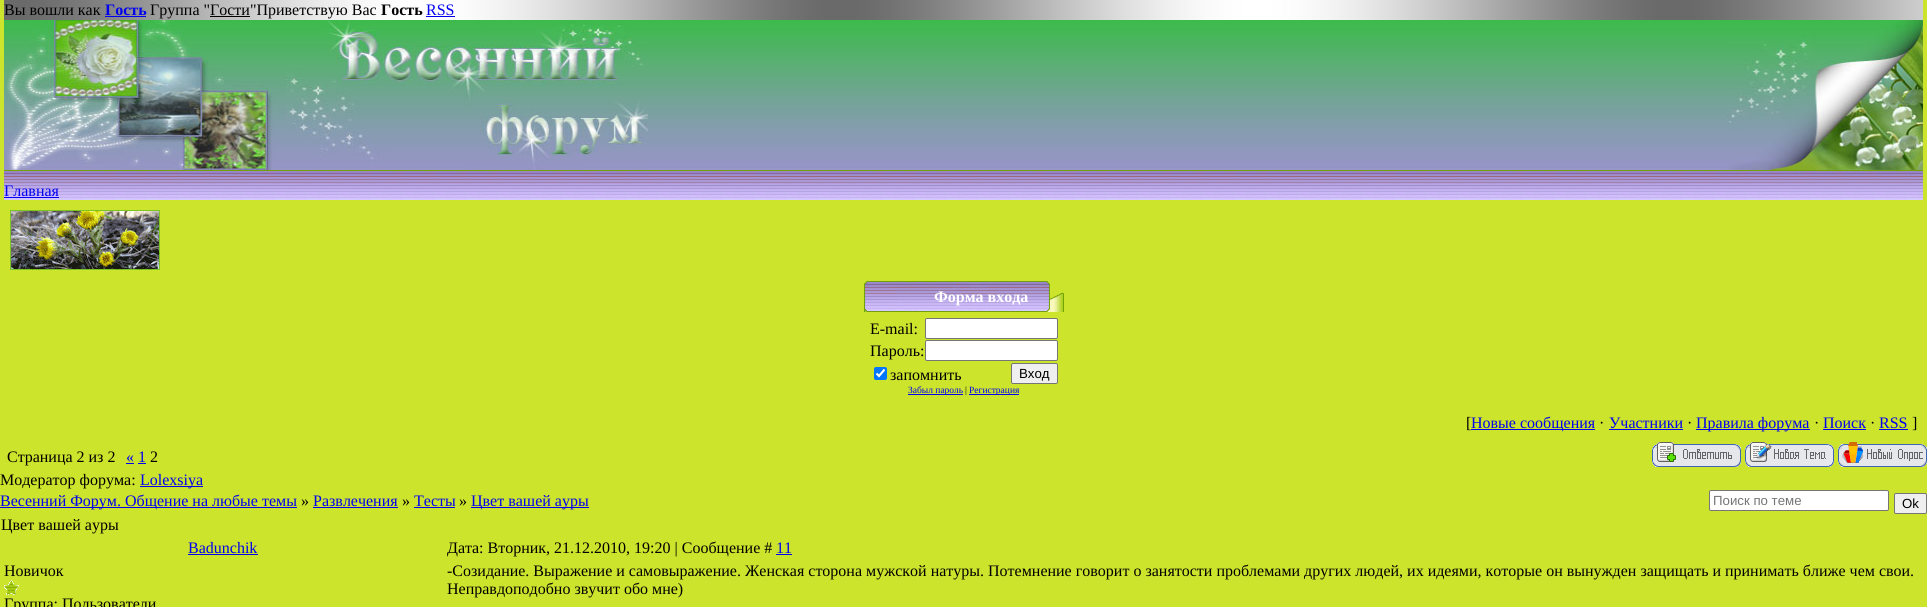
#include <cairo.h>
#include <math.h>
#include <stddef.h>


static void round_rect(cairo_t *cr, double x, double y, double w, double h, double r) {
    cairo_new_sub_path(cr);
    cairo_arc(cr, x + w - r, y + h - r, r, 0, M_PI / 2);
    cairo_arc(cr, x + r, y + h - r, r, M_PI / 2, M_PI);
    cairo_arc(cr, x + r, y + r, r, M_PI, 1.5 * M_PI);
    cairo_arc(cr, x + w - r, y + r, r, 1.5 * M_PI, 2 * M_PI);
    cairo_close_path(cr);
}

static void picture(cairo_t *cr, const char *path, double x, double y, double w, double h) {
    cairo_surface_t *image = cairo_image_surface_create_from_png(path);
    cairo_save(cr);
    cairo_set_source_surface(cr, image, x, y);
    cairo_rectangle(cr, x, y, w, h);
    cairo_fill(cr);
    cairo_restore(cr);
    cairo_surface_destroy(image);
}

int main(void) {
    cairo_surface_t *surface = cairo_image_surface_create(CAIRO_FORMAT_RGB24, 1927, 607);
    cairo_t *cr = cairo_create(surface);
    cairo_font_options_t *options = cairo_font_options_create();
    cairo_font_options_set_hint_metrics(options, CAIRO_HINT_METRICS_OFF);
    cairo_font_options_set_hint_style(options, CAIRO_HINT_STYLE_NONE);
    cairo_set_font_options(cr, options);
    cairo_set_miter_limit(cr, 4);
    cairo_set_source_rgb(cr, 0.8, 0.894, 0.173);
    cairo_paint(cr);
    picture(cr, "img1.png", 4, 0, 1919, 20);
    cairo_select_font_face(cr, "Liberation Serif", CAIRO_FONT_SLANT_NORMAL, CAIRO_FONT_WEIGHT_NORMAL);
    cairo_set_font_size(cr, 16);
    cairo_set_source_rgb(cr, 0, 0, 0);
    cairo_move_to(cr, 4, 15);
    cairo_show_text(cr, "Вы вошли как");
    cairo_select_font_face(cr, "Liberation Serif", CAIRO_FONT_SLANT_NORMAL, CAIRO_FONT_WEIGHT_BOLD);
    cairo_set_source_rgb(cr, 0, 0, 0.933);
    cairo_move_to(cr, 105, 15);
    cairo_show_text(cr, "Гость");
    cairo_rectangle(cr, 105, 16, 41, 1);
    cairo_fill(cr);
    cairo_select_font_face(cr, "Liberation Serif", CAIRO_FONT_SLANT_NORMAL, CAIRO_FONT_WEIGHT_NORMAL);
    cairo_set_source_rgb(cr, 0, 0, 0);
    cairo_move_to(cr, 150, 15);
    cairo_show_text(cr, "Группа \"Гости\"Приветствую Вас");
    cairo_select_font_face(cr, "Liberation Serif", CAIRO_FONT_SLANT_NORMAL, CAIRO_FONT_WEIGHT_BOLD);
    cairo_move_to(cr, 381, 15);
    cairo_show_text(cr, "Гость");
    cairo_select_font_face(cr, "Liberation Serif", CAIRO_FONT_SLANT_NORMAL, CAIRO_FONT_WEIGHT_NORMAL);
    cairo_set_source_rgb(cr, 0, 0, 0.933);
    cairo_move_to(cr, 426, 15);
    cairo_show_text(cr, "RSS");
    cairo_rectangle(cr, 426, 16, 29, 1);
    cairo_fill(cr);
    cairo_set_source_rgb(cr, 0, 0, 0);
    cairo_rectangle(cr, 210, 16, 40, 1);
    cairo_fill(cr);
    picture(cr, "img2.png", 648, 20, 1079, 150);
    picture(cr, "img3.png", 4, 20, 644, 150);
    picture(cr, "img4.png", 1727, 20, 196, 150);
    picture(cr, "img5.png", 4, 170, 1919, 30);
    cairo_set_source_rgb(cr, 0, 0, 0.933);
    cairo_move_to(cr, 4, 196);
    cairo_show_text(cr, "Главная");
    cairo_rectangle(cr, 4, 197, 55, 1);
    cairo_fill(cr);
    picture(cr, "img6.png", 10, 210, 150, 60);
    picture(cr, "img7.png", 864, 281, 200, 31);
    cairo_select_font_face(cr, "Liberation Serif", CAIRO_FONT_SLANT_NORMAL, CAIRO_FONT_WEIGHT_BOLD);
    cairo_set_source_rgb(cr, 1, 1, 1);
    cairo_move_to(cr, 934, 302);
    cairo_show_text(cr, "Форма входа");
    cairo_select_font_face(cr, "Liberation Serif", CAIRO_FONT_SLANT_NORMAL, CAIRO_FONT_WEIGHT_NORMAL);
    cairo_set_source_rgb(cr, 0, 0, 0);
    cairo_move_to(cr, 870, 334);
    cairo_show_text(cr, "E-mail:");
    cairo_set_source_rgb(cr, 1, 1, 1);
    round_rect(cr, 925.5, 318.5, 132, 20, 1.5);
    cairo_fill_preserve(cr);
    cairo_set_source_rgb(cr, 0.463, 0.463, 0.463);
    cairo_set_line_width(cr, 1);
    cairo_stroke(cr);
    cairo_set_source_rgb(cr, 0, 0, 0);
    cairo_move_to(cr, 870, 356);
    cairo_show_text(cr, "Пароль:");
    cairo_set_source_rgb(cr, 1, 1, 1);
    round_rect(cr, 925.5, 340.5, 132, 20, 1.5);
    cairo_fill_preserve(cr);
    cairo_set_source_rgb(cr, 0.463, 0.463, 0.463);
    cairo_stroke(cr);
    cairo_set_source_rgb(cr, 0, 0.459, 1);
    round_rect(cr, 874, 367, 13, 13, 2);
    cairo_fill(cr);
    cairo_new_path(cr);
    cairo_move_to(cr, 876.5, 373.5);
    cairo_line_to(cr, 879, 376);
    cairo_line_to(cr, 884.5, 369.5);
    cairo_set_source_rgb(cr, 1, 1, 1);
    cairo_set_line_width(cr, 2.1);
    cairo_stroke(cr);
    cairo_set_source_rgb(cr, 0, 0, 0);
    cairo_move_to(cr, 890, 380);
    cairo_show_text(cr, "запомнить");
    cairo_set_source_rgb(cr, 0.937, 0.937, 0.937);
    round_rect(cr, 1011.5, 363.5, 46, 20, 1.5);
    cairo_fill_preserve(cr);
    cairo_set_source_rgb(cr, 0.463, 0.463, 0.463);
    cairo_set_line_width(cr, 1);
    cairo_stroke(cr);
    cairo_select_font_face(cr, "Liberation Sans", CAIRO_FONT_SLANT_NORMAL, CAIRO_FONT_WEIGHT_NORMAL);
    cairo_set_font_size(cr, 13.25);
    cairo_set_source_rgb(cr, 0, 0, 0);
    cairo_move_to(cr, 1019, 378);
    cairo_show_text(cr, "Вход");
    cairo_set_source_rgb(cr, 0, 0, 0.933);
    cairo_rectangle(cr, 908, 394, 55, 1);
    cairo_fill(cr);
    cairo_select_font_face(cr, "Liberation Serif", CAIRO_FONT_SLANT_NORMAL, CAIRO_FONT_WEIGHT_NORMAL);
    cairo_set_font_size(cr, 9.5);
    cairo_move_to(cr, 908, 393);
    cairo_show_text(cr, "Забыл пароль");
    cairo_set_source_rgb(cr, 0, 0, 0);
    cairo_move_to(cr, 965, 393);
    cairo_show_text(cr, "|");
    cairo_set_source_rgb(cr, 0, 0, 0.933);
    cairo_rectangle(cr, 969, 394, 50, 1);
    cairo_fill(cr);
    cairo_move_to(cr, 969, 393);
    cairo_show_text(cr, "Регистрация");
    cairo_set_font_size(cr, 16);
    cairo_set_source_rgb(cr, 0, 0, 0);
    cairo_move_to(cr, 1466, 428);
    cairo_show_text(cr, "[");
    cairo_set_source_rgb(cr, 0, 0, 0.933);
    cairo_rectangle(cr, 1471, 429, 124, 1);
    cairo_fill(cr);
    cairo_move_to(cr, 1471, 428);
    cairo_show_text(cr, "Новые сообщения");
    cairo_set_source_rgb(cr, 0, 0, 0);
    cairo_move_to(cr, 1599, 428);
    cairo_show_text(cr, "·");
    cairo_set_source_rgb(cr, 0, 0, 0.933);
    cairo_move_to(cr, 1609, 428);
    cairo_show_text(cr, "Участники");
    cairo_rectangle(cr, 1609, 429, 74, 1);
    cairo_fill(cr);
    cairo_set_source_rgb(cr, 0, 0, 0);
    cairo_move_to(cr, 1687, 428);
    cairo_show_text(cr, "·");
    cairo_set_source_rgb(cr, 0, 0, 0.933);
    cairo_rectangle(cr, 1696, 429, 114, 1);
    cairo_fill(cr);
    cairo_move_to(cr, 1696, 428);
    cairo_show_text(cr, "Правила форума");
    cairo_set_source_rgb(cr, 0, 0, 0);
    cairo_move_to(cr, 1814, 428);
    cairo_show_text(cr, "·");
    cairo_set_source_rgb(cr, 0, 0, 0.933);
    cairo_move_to(cr, 1823, 428);
    cairo_show_text(cr, "Поиск");
    cairo_rectangle(cr, 1823, 429, 43, 1);
    cairo_fill(cr);
    cairo_set_source_rgb(cr, 0, 0, 0);
    cairo_move_to(cr, 1870, 428);
    cairo_show_text(cr, "·");
    cairo_set_source_rgb(cr, 0, 0, 0.933);
    cairo_move_to(cr, 1879, 428);
    cairo_show_text(cr, "RSS");
    cairo_rectangle(cr, 1879, 429, 29, 1);
    cairo_fill(cr);
    cairo_set_source_rgb(cr, 0, 0, 0);
    cairo_move_to(cr, 1912, 428);
    cairo_show_text(cr, "]");
    cairo_move_to(cr, 7, 462);
    cairo_show_text(cr, "Страница 2 из 2");
    cairo_set_source_rgb(cr, 0, 0, 0.933);
    cairo_move_to(cr, 126, 462);
    cairo_show_text(cr, "« 1");
    cairo_rectangle(cr, 126, 463, 8, 1);
    cairo_fill(cr);
    cairo_set_source_rgb(cr, 0, 0, 0);
    cairo_move_to(cr, 150, 462);
    cairo_show_text(cr, "2");
    cairo_set_source_rgb(cr, 0, 0, 0.933);
    cairo_rectangle(cr, 138, 463, 8, 1);
    cairo_fill(cr);
    picture(cr, "img8.png", 1652, 442, 89, 25);
    picture(cr, "img9.png", 1745, 442, 89, 25);
    picture(cr, "img10.png", 1838, 442, 89, 25);
    cairo_set_source_rgb(cr, 0, 0, 0);
    cairo_move_to(cr, 0, 485);
    cairo_show_text(cr, "Модератор форума:");
    cairo_set_source_rgb(cr, 0, 0, 0.933);
    cairo_rectangle(cr, 140, 486, 63, 1);
    cairo_fill(cr);
    cairo_move_to(cr, 140, 485);
    cairo_show_text(cr, "Lolexsiya");
    cairo_rectangle(cr, 0, 507, 297, 1);
    cairo_fill(cr);
    cairo_move_to(cr, 0, 506);
    cairo_show_text(cr, "Весенний Форум. Общение на любые темы");
    cairo_set_source_rgb(cr, 0, 0, 0);
    cairo_move_to(cr, 301, 506);
    cairo_show_text(cr, "»");
    cairo_set_source_rgb(cr, 0, 0, 0.933);
    cairo_move_to(cr, 313, 506);
    cairo_show_text(cr, "Развлечения");
    cairo_rectangle(cr, 313, 507, 85, 1);
    cairo_fill(cr);
    cairo_set_source_rgb(cr, 0, 0, 0);
    cairo_move_to(cr, 402, 506);
    cairo_show_text(cr, "»");
    cairo_set_source_rgb(cr, 0, 0, 0.933);
    cairo_move_to(cr, 414, 506);
    cairo_show_text(cr, "Тесты");
    cairo_rectangle(cr, 414, 507, 41, 1);
    cairo_fill(cr);
    cairo_set_source_rgb(cr, 0, 0, 0);
    cairo_move_to(cr, 459, 506);
    cairo_show_text(cr, "»");
    cairo_set_source_rgb(cr, 0, 0, 0.933);
    cairo_rectangle(cr, 471, 507, 118, 1);
    cairo_fill(cr);
    cairo_move_to(cr, 471, 506);
    cairo_show_text(cr, "Цвет вашей ауры");
    cairo_set_source_rgb(cr, 1, 1, 1);
    round_rect(cr, 1709.5, 490.5, 179, 20, 1.5);
    cairo_fill_preserve(cr);
    cairo_set_source_rgb(cr, 0.463, 0.463, 0.463);
    cairo_stroke(cr);
    cairo_select_font_face(cr, "Liberation Sans", CAIRO_FONT_SLANT_NORMAL, CAIRO_FONT_WEIGHT_NORMAL);
    cairo_set_font_size(cr, 13.25);
    cairo_set_source_rgb(cr, 0.459, 0.459, 0.459);
    cairo_move_to(cr, 1713, 505);
    cairo_show_text(cr, "Поиск по теме");
    cairo_set_source_rgb(cr, 0.937, 0.937, 0.937);
    round_rect(cr, 1894.5, 493.5, 32, 20, 1.5);
    cairo_fill_preserve(cr);
    cairo_set_source_rgb(cr, 0.463, 0.463, 0.463);
    cairo_stroke(cr);
    cairo_set_source_rgb(cr, 0, 0, 0);
    cairo_move_to(cr, 1902, 508);
    cairo_show_text(cr, "Ok");
    cairo_select_font_face(cr, "Liberation Serif", CAIRO_FONT_SLANT_NORMAL, CAIRO_FONT_WEIGHT_NORMAL);
    cairo_set_font_size(cr, 16);
    cairo_move_to(cr, 1, 530);
    cairo_show_text(cr, "Цвет вашей ауры");
    cairo_set_source_rgb(cr, 0, 0, 0.933);
    cairo_move_to(cr, 188, 553);
    cairo_show_text(cr, "Badunchik");
    cairo_rectangle(cr, 188, 554, 70, 1);
    cairo_fill(cr);
    cairo_set_source_rgb(cr, 0, 0, 0);
    cairo_move_to(cr, 447, 553);
    cairo_show_text(cr, "Дата: Вторник, 21.12.2010, 19:20 | Сообщение #");
    cairo_set_source_rgb(cr, 0, 0, 0.933);
    cairo_move_to(cr, 776, 553);
    cairo_show_text(cr, "11");
    cairo_rectangle(cr, 776, 554, 16, 1);
    cairo_fill(cr);
    cairo_set_source_rgb(cr, 0, 0, 0);
    cairo_move_to(cr, 4, 576);
    cairo_show_text(cr, "Новичок");
    picture(cr, "img11.png", 4, 580, 15, 15);
    cairo_move_to(cr, 4, 609);
    cairo_show_text(cr, "Группа: Пользователи");
    cairo_move_to(cr, 447, 576);
    cairo_show_text(cr, "-Созидание. Выражение и самовыражение. Женская сторона мужской натуры. Потемнение говорит о занятости проблемами других людей, их идеями, которые он вынужден защищать и принимать ближе чем свои.");
    cairo_move_to(cr, 447, 594);
    cairo_show_text(cr, "Неправдоподобно звучит обо мне)");
    cairo_surface_write_to_png(surface, "page.png");
    cairo_font_options_destroy(options);
    cairo_destroy(cr);
    cairo_surface_destroy(surface);
    return 0;
}
